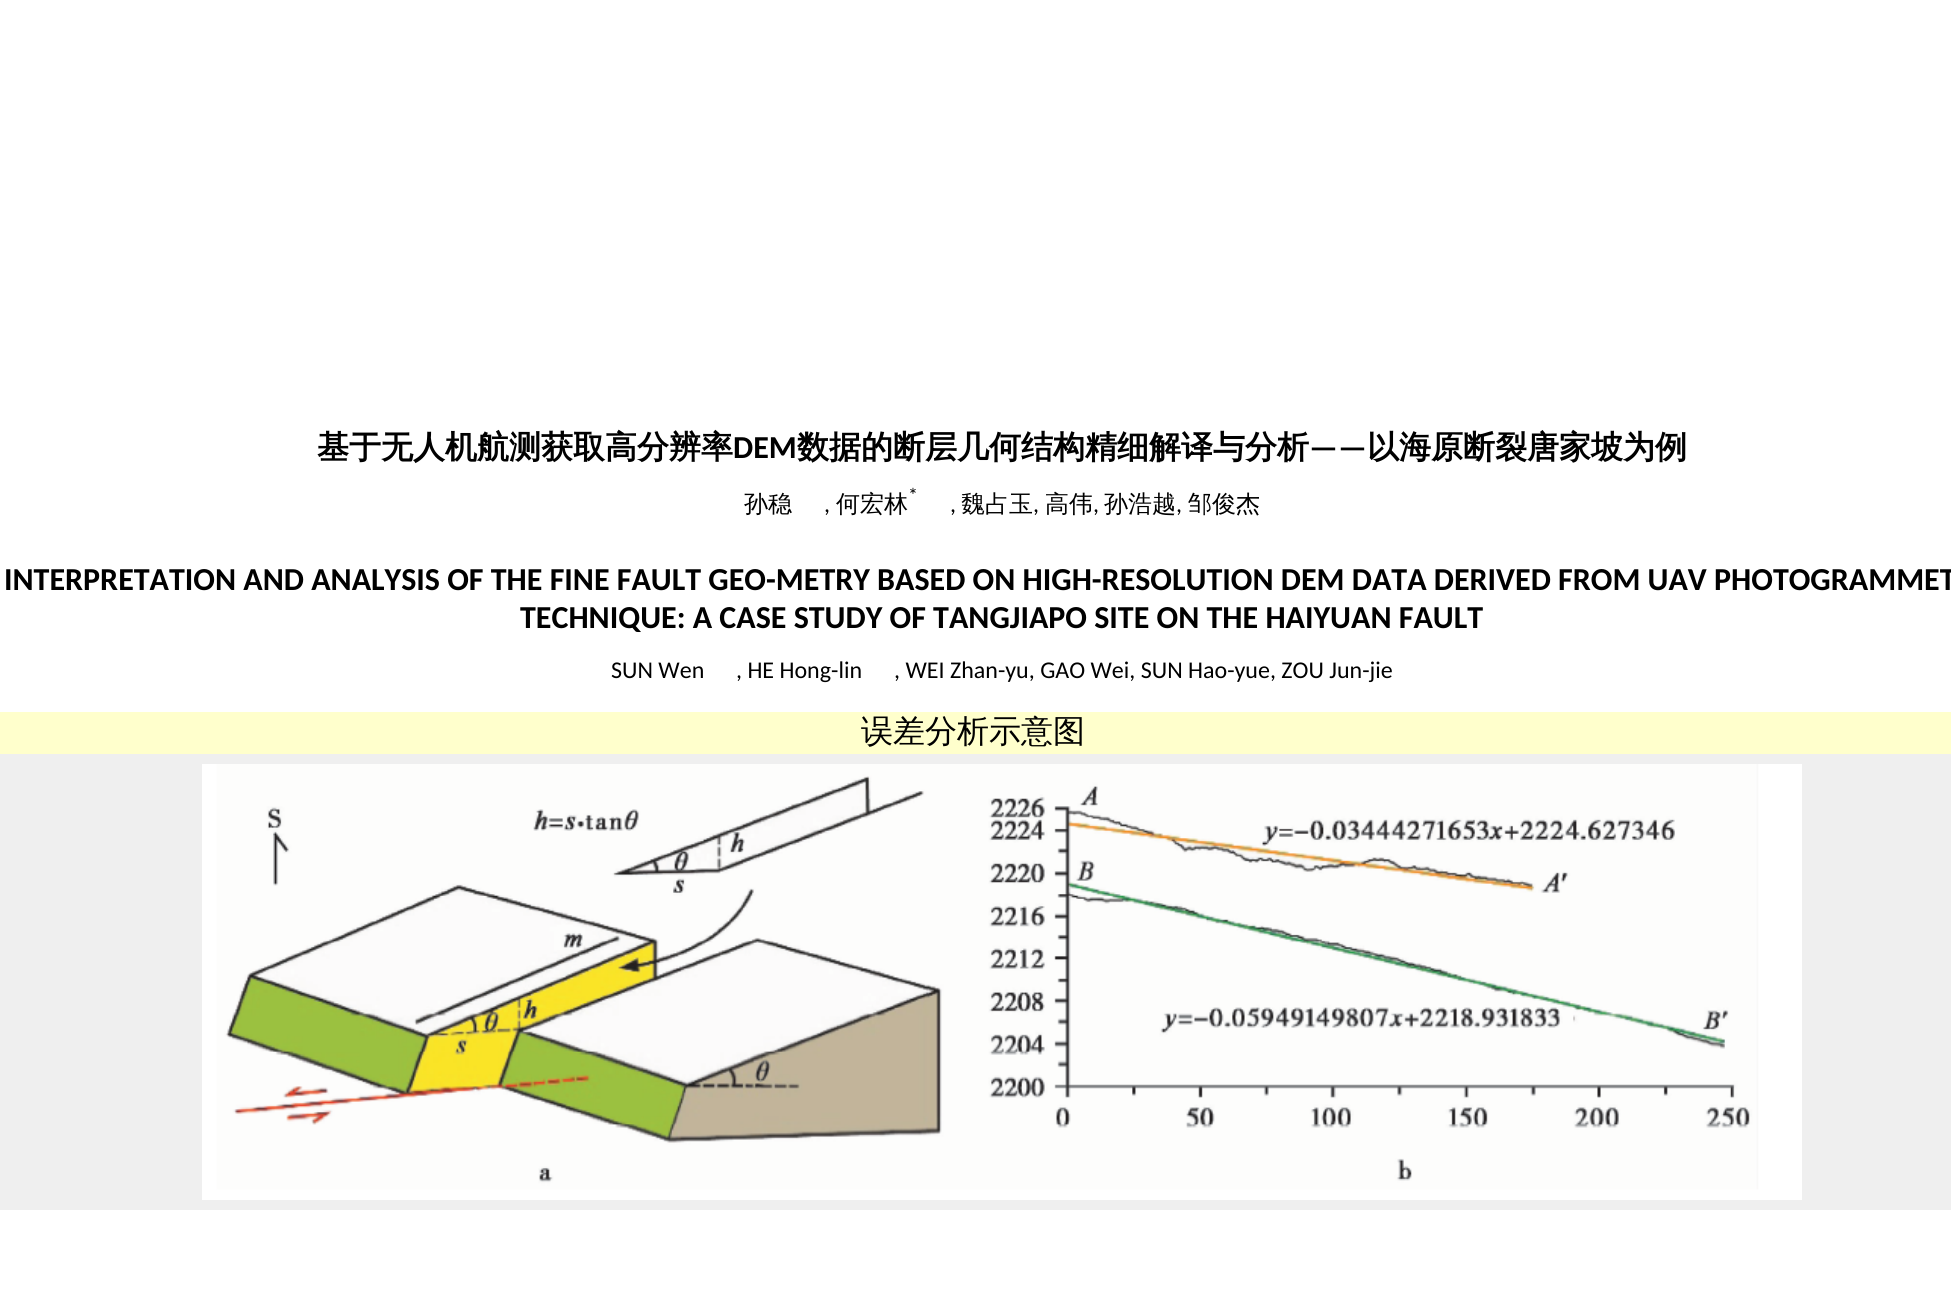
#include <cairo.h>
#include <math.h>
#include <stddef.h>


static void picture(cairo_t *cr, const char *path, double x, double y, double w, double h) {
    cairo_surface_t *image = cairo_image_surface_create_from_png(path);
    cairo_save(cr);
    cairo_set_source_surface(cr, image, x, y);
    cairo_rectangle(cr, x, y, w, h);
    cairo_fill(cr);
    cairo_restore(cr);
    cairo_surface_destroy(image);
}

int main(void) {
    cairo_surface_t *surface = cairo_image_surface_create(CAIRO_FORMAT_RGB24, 1951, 1313);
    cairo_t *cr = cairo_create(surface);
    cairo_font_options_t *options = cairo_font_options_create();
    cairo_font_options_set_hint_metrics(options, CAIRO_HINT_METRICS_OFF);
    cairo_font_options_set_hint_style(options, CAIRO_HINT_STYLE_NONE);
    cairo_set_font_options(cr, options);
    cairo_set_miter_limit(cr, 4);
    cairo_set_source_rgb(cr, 1, 1, 1);
    cairo_paint(cr);
    cairo_select_font_face(cr, "WenQuanYi Zen Hei", CAIRO_FONT_SLANT_NORMAL, CAIRO_FONT_WEIGHT_BOLD);
    cairo_set_font_size(cr, 32);
    cairo_set_source_rgb(cr, 0, 0, 0);
    cairo_move_to(cr, 317, 458);
    cairo_show_text(cr, "基于无人机航测获取高分辨率");
    cairo_select_font_face(cr, "Carlito", CAIRO_FONT_SLANT_NORMAL, CAIRO_FONT_WEIGHT_BOLD);
    cairo_move_to(cr, 733, 458);
    cairo_show_text(cr, "DEM");
    cairo_select_font_face(cr, "WenQuanYi Zen Hei", CAIRO_FONT_SLANT_NORMAL, CAIRO_FONT_WEIGHT_BOLD);
    cairo_move_to(cr, 797, 458);
    cairo_show_text(cr, "数据的断层几何结构精细解译与分析");
    cairo_select_font_face(cr, "Carlito", CAIRO_FONT_SLANT_NORMAL, CAIRO_FONT_WEIGHT_BOLD);
    cairo_move_to(cr, 1309, 458);
    cairo_show_text(cr, "——");
    cairo_select_font_face(cr, "WenQuanYi Zen Hei", CAIRO_FONT_SLANT_NORMAL, CAIRO_FONT_WEIGHT_BOLD);
    cairo_move_to(cr, 1367, 458);
    cairo_show_text(cr, "以海原断裂唐家坡为例");
    cairo_select_font_face(cr, "WenQuanYi Zen Hei Medium", CAIRO_FONT_SLANT_NORMAL, CAIRO_FONT_WEIGHT_NORMAL);
    cairo_set_font_size(cr, 24);
    cairo_move_to(cr, 744, 512);
    cairo_show_text(cr, "孙稳");
    cairo_select_font_face(cr, "Carlito", CAIRO_FONT_SLANT_NORMAL, CAIRO_FONT_WEIGHT_NORMAL);
    cairo_move_to(cr, 824, 512);
    cairo_show_text(cr, ",");
    cairo_select_font_face(cr, "WenQuanYi Zen Hei Medium", CAIRO_FONT_SLANT_NORMAL, CAIRO_FONT_WEIGHT_NORMAL);
    cairo_move_to(cr, 836, 512);
    cairo_show_text(cr, "何宏林");
    cairo_select_font_face(cr, "Carlito", CAIRO_FONT_SLANT_NORMAL, CAIRO_FONT_WEIGHT_NORMAL);
    cairo_set_font_size(cr, 20);
    cairo_move_to(cr, 908, 502);
    cairo_show_text(cr, "*");
    cairo_set_font_size(cr, 24);
    cairo_move_to(cr, 950, 512);
    cairo_show_text(cr, ",");
    cairo_select_font_face(cr, "WenQuanYi Zen Hei Medium", CAIRO_FONT_SLANT_NORMAL, CAIRO_FONT_WEIGHT_NORMAL);
    cairo_move_to(cr, 961, 512);
    cairo_show_text(cr, "魏占玉");
    cairo_select_font_face(cr, "Carlito", CAIRO_FONT_SLANT_NORMAL, CAIRO_FONT_WEIGHT_NORMAL);
    cairo_move_to(cr, 1033, 512);
    cairo_show_text(cr, ",");
    cairo_select_font_face(cr, "WenQuanYi Zen Hei Medium", CAIRO_FONT_SLANT_NORMAL, CAIRO_FONT_WEIGHT_NORMAL);
    cairo_move_to(cr, 1045, 512);
    cairo_show_text(cr, "高伟");
    cairo_select_font_face(cr, "Carlito", CAIRO_FONT_SLANT_NORMAL, CAIRO_FONT_WEIGHT_NORMAL);
    cairo_move_to(cr, 1093, 512);
    cairo_show_text(cr, ",");
    cairo_select_font_face(cr, "WenQuanYi Zen Hei Medium", CAIRO_FONT_SLANT_NORMAL, CAIRO_FONT_WEIGHT_NORMAL);
    cairo_move_to(cr, 1104, 512);
    cairo_show_text(cr, "孙浩越");
    cairo_select_font_face(cr, "Carlito", CAIRO_FONT_SLANT_NORMAL, CAIRO_FONT_WEIGHT_NORMAL);
    cairo_move_to(cr, 1176, 512);
    cairo_show_text(cr, ",");
    cairo_select_font_face(cr, "WenQuanYi Zen Hei Medium", CAIRO_FONT_SLANT_NORMAL, CAIRO_FONT_WEIGHT_NORMAL);
    cairo_move_to(cr, 1188, 512);
    cairo_show_text(cr, "邹俊杰");
    cairo_select_font_face(cr, "Carlito", CAIRO_FONT_SLANT_NORMAL, CAIRO_FONT_WEIGHT_BOLD);
    cairo_set_font_size(cr, 32);
    cairo_move_to(cr, 4, 590);
    cairo_show_text(cr, "INTERPRETATION AND ANALYSIS OF THE FINE FAULT GEO-METRY BASED ON HIGH-RESOLUTION DEM DATA DERIVED FROM UAV PHOTOGRAMMET");
    cairo_move_to(cr, 520, 628);
    cairo_show_text(cr, "TECHNIQUE: A CASE STUDY OF TANGJIAPO SITE ON THE HAIYUAN FAULT");
    cairo_select_font_face(cr, "Carlito", CAIRO_FONT_SLANT_NORMAL, CAIRO_FONT_WEIGHT_NORMAL);
    cairo_set_font_size(cr, 24);
    cairo_move_to(cr, 611, 678);
    cairo_show_text(cr, "SUN Wen");
    cairo_move_to(cr, 736, 678);
    cairo_show_text(cr, ", HE Hong-lin");
    cairo_move_to(cr, 894, 678);
    cairo_show_text(cr, ", WEI Zhan-yu, GAO Wei, SUN Hao-yue, ZOU Jun-jie");
    cairo_set_source_rgb(cr, 1, 1, 0.8);
    cairo_rectangle(cr, 0, 712, 1951, 42);
    cairo_fill(cr);
    cairo_select_font_face(cr, "WenQuanYi Zen Hei Medium", CAIRO_FONT_SLANT_NORMAL, CAIRO_FONT_WEIGHT_NORMAL);
    cairo_set_font_size(cr, 32);
    cairo_set_source_rgb(cr, 0, 0, 0);
    cairo_move_to(cr, 861, 742);
    cairo_show_text(cr, "误差分析示意图");
    cairo_set_source_rgb(cr, 0.937, 0.937, 0.937);
    cairo_rectangle(cr, 0, 754, 1951, 456);
    cairo_fill(cr);
    picture(cr, "img1.png", 202, 764, 1600, 436);
    cairo_surface_write_to_png(surface, "page.png");
    cairo_font_options_destroy(options);
    cairo_destroy(cr);
    cairo_surface_destroy(surface);
    return 0;
}
